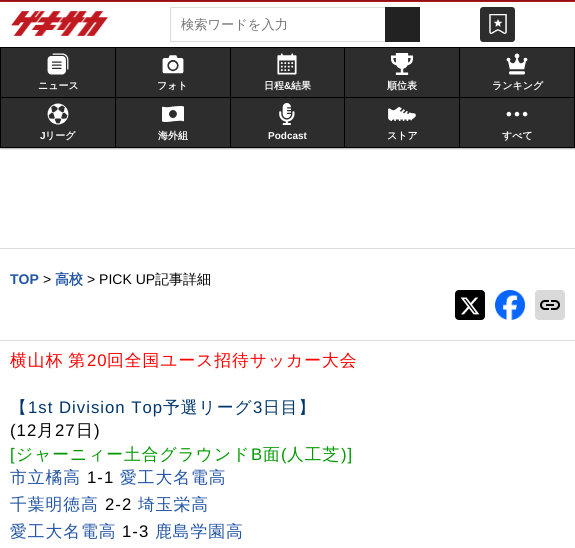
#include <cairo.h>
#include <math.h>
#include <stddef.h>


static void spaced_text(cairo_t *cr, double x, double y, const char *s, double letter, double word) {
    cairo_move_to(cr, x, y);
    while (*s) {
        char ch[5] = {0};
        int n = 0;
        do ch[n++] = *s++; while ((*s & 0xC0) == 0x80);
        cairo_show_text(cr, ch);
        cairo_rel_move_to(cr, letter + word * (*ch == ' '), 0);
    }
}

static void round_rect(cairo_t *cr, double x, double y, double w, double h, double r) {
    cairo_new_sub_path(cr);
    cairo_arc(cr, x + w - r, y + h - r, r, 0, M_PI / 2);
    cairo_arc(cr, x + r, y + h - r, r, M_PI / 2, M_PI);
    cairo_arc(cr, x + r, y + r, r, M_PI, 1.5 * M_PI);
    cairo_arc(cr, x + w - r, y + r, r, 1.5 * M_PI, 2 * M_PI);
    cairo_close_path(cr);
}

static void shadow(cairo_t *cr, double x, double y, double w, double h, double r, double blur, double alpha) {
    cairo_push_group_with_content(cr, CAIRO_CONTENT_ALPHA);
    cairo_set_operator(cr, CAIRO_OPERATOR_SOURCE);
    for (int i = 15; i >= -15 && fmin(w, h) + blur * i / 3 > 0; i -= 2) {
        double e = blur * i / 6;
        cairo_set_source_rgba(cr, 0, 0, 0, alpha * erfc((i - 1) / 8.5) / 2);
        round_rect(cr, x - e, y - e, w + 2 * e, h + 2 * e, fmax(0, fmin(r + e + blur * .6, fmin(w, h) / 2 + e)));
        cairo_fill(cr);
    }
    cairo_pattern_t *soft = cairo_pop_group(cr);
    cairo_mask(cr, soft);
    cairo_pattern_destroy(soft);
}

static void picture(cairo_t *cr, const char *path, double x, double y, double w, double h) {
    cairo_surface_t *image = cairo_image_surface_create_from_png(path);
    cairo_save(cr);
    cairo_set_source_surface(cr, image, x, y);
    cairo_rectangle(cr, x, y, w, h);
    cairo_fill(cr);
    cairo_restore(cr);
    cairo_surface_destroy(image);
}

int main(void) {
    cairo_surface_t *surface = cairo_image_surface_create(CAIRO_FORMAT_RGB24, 575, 548);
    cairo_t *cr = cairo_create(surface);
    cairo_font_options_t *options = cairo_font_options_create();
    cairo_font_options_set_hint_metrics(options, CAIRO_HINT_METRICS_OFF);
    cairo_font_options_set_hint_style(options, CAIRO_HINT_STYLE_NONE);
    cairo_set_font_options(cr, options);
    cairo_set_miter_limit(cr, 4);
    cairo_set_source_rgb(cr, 1, 1, 1);
    cairo_paint(cr);
    cairo_save(cr);
    cairo_rectangle(cr, 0, 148, 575, 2);
    cairo_clip(cr);
    cairo_set_source_rgb(cr, 0, 0, 0);
    shadow(cr, 0, 1, 575, 148, 0, 0.5, 0.3);
    cairo_restore(cr);
    cairo_set_source_rgb(cr, 0.753, 0.098, 0.125);
    cairo_rectangle(cr, 0, 0, 575, 2);
    cairo_fill(cr);
    cairo_set_source_rgb(cr, 0, 0, 0);
    shadow(cr, 0, -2, 575, 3, 0, 0.5, 0.3);
    picture(cr, "img1.png", 11, 11, 98, 25);
    cairo_set_source_rgb(cr, 0.867, 0.867, 0.867);
    cairo_rectangle(cr, 170, 7, 215, 1);
    cairo_fill(cr);
    cairo_rectangle(cr, 170, 41, 215, 1);
    cairo_fill(cr);
    cairo_rectangle(cr, 170, 7, 1, 35);
    cairo_fill(cr);
    cairo_select_font_face(cr, "WenQuanYi Zen Hei Medium", CAIRO_FONT_SLANT_NORMAL, CAIRO_FONT_WEIGHT_NORMAL);
    cairo_set_font_size(cr, 13.25);
    cairo_set_source_rgb(cr, 0.459, 0.459, 0.459);
    cairo_move_to(cr, 181, 29);
    cairo_show_text(cr, "検索ワードを入力");
    cairo_set_source_rgb(cr, 0.133, 0.133, 0.133);
    cairo_rectangle(cr, 385, 7, 35, 35);
    cairo_fill(cr);
    cairo_set_source_rgb(cr, 0.176, 0.176, 0.176);
    round_rect(cr, 480, 7, 35, 35, 3);
    cairo_fill(cr);
    picture(cr, "img2.png", 489, 14, 18, 20);
    cairo_rectangle(cr, 1, 48, 573, 99);
    cairo_fill(cr);
    cairo_set_source_rgb(cr, 0, 0, 0);
    cairo_rectangle(cr, 574, 47, 1, 101);
    cairo_fill(cr);
    cairo_rectangle(cr, 0, 147, 575, 1);
    cairo_fill(cr);
    cairo_rectangle(cr, 0, 47, 574, 1);
    cairo_fill(cr);
    cairo_rectangle(cr, 0, 47, 1, 50);
    cairo_fill(cr);
    picture(cr, "img3.png", 47, 53, 22, 22);
    cairo_select_font_face(cr, "WenQuanYi Zen Hei", CAIRO_FONT_SLANT_NORMAL, CAIRO_FONT_WEIGHT_BOLD);
    cairo_set_font_size(cr, 10);
    cairo_set_source_rgb(cr, 1, 1, 1);
    cairo_move_to(cr, 38, 89);
    cairo_show_text(cr, "ニュース");
    cairo_set_source_rgb(cr, 0, 0, 0);
    cairo_rectangle(cr, 115, 47, 1, 50);
    cairo_fill(cr);
    picture(cr, "img4.png", 162, 55, 22, 19);
    cairo_set_source_rgb(cr, 1, 1, 1);
    cairo_move_to(cr, 157, 89);
    cairo_show_text(cr, "フォト");
    cairo_set_source_rgb(cr, 0, 0, 0);
    cairo_rectangle(cr, 230, 47, 1, 50);
    cairo_fill(cr);
    picture(cr, "img5.png", 277, 53, 20, 22);
    cairo_set_source_rgb(cr, 1, 1, 1);
    cairo_move_to(cr, 264, 89);
    cairo_show_text(cr, "日程");
    cairo_select_font_face(cr, "Liberation Sans", CAIRO_FONT_SLANT_NORMAL, CAIRO_FONT_WEIGHT_BOLD);
    cairo_move_to(cr, 284, 89);
    cairo_show_text(cr, "&");
    cairo_select_font_face(cr, "WenQuanYi Zen Hei", CAIRO_FONT_SLANT_NORMAL, CAIRO_FONT_WEIGHT_BOLD);
    cairo_move_to(cr, 291, 89);
    cairo_show_text(cr, "結果");
    cairo_set_source_rgb(cr, 0, 0, 0);
    cairo_rectangle(cr, 344, 47, 1, 50);
    cairo_fill(cr);
    picture(cr, "img6.png", 391, 53, 22, 22);
    cairo_set_source_rgb(cr, 1, 1, 1);
    cairo_move_to(cr, 387, 89);
    cairo_show_text(cr, "順位表");
    cairo_set_source_rgb(cr, 0, 0, 0);
    cairo_rectangle(cr, 459, 47, 1, 50);
    cairo_fill(cr);
    picture(cr, "img7.png", 506, 53, 22, 22);
    cairo_set_source_rgb(cr, 1, 1, 1);
    cairo_move_to(cr, 492, 89);
    cairo_show_text(cr, "ランキング");
    cairo_set_source_rgb(cr, 0, 0, 0);
    cairo_rectangle(cr, 0, 97, 574, 1);
    cairo_fill(cr);
    cairo_rectangle(cr, 0, 97, 1, 50);
    cairo_fill(cr);
    picture(cr, "img8.png", 47, 103, 22, 22);
    cairo_select_font_face(cr, "Liberation Sans", CAIRO_FONT_SLANT_NORMAL, CAIRO_FONT_WEIGHT_BOLD);
    cairo_set_source_rgb(cr, 1, 1, 1);
    cairo_move_to(cr, 40, 139);
    cairo_show_text(cr, "J");
    cairo_select_font_face(cr, "WenQuanYi Zen Hei", CAIRO_FONT_SLANT_NORMAL, CAIRO_FONT_WEIGHT_BOLD);
    cairo_move_to(cr, 45, 139);
    cairo_show_text(cr, "リーグ");
    cairo_set_source_rgb(cr, 0, 0, 0);
    cairo_rectangle(cr, 115, 97, 1, 50);
    cairo_fill(cr);
    picture(cr, "img9.png", 162, 106, 22, 16);
    cairo_set_source_rgb(cr, 1, 1, 1);
    cairo_move_to(cr, 158, 139);
    cairo_show_text(cr, "海外組");
    cairo_set_source_rgb(cr, 0, 0, 0);
    cairo_rectangle(cr, 230, 97, 1, 50);
    cairo_fill(cr);
    picture(cr, "img10.png", 279, 103, 16, 22);
    cairo_select_font_face(cr, "Liberation Sans", CAIRO_FONT_SLANT_NORMAL, CAIRO_FONT_WEIGHT_BOLD);
    cairo_set_source_rgb(cr, 1, 1, 1);
    cairo_move_to(cr, 268, 139);
    cairo_show_text(cr, "Podcast");
    cairo_set_source_rgb(cr, 0, 0, 0);
    cairo_rectangle(cr, 344, 97, 1, 50);
    cairo_fill(cr);
    picture(cr, "img11.png", 388, 107, 28, 14);
    cairo_select_font_face(cr, "WenQuanYi Zen Hei", CAIRO_FONT_SLANT_NORMAL, CAIRO_FONT_WEIGHT_BOLD);
    cairo_set_source_rgb(cr, 1, 1, 1);
    cairo_move_to(cr, 387, 139);
    cairo_show_text(cr, "ストア");
    cairo_set_source_rgb(cr, 0, 0, 0);
    cairo_rectangle(cr, 459, 97, 1, 50);
    cairo_fill(cr);
    picture(cr, "img12.png", 506, 111, 22, 6);
    cairo_set_source_rgb(cr, 1, 1, 1);
    cairo_move_to(cr, 502, 139);
    cairo_show_text(cr, "すべて");
    cairo_set_source_rgb(cr, 0.867, 0.867, 0.867);
    cairo_rectangle(cr, 0, 248, 575, 1);
    cairo_fill(cr);
    cairo_rectangle(cr, 0, 340, 575, 1);
    cairo_fill(cr);
    cairo_select_font_face(cr, "Liberation Sans", CAIRO_FONT_SLANT_NORMAL, CAIRO_FONT_WEIGHT_BOLD);
    cairo_set_font_size(cr, 14);
    cairo_set_source_rgb(cr, 0.137, 0.333, 0.647);
    cairo_move_to(cr, 10, 284);
    cairo_show_text(cr, "TOP");
    cairo_select_font_face(cr, "Liberation Sans", CAIRO_FONT_SLANT_NORMAL, CAIRO_FONT_WEIGHT_NORMAL);
    cairo_set_source_rgb(cr, 0, 0, 0);
    cairo_move_to(cr, 43, 284);
    cairo_show_text(cr, ">");
    cairo_select_font_face(cr, "WenQuanYi Zen Hei", CAIRO_FONT_SLANT_NORMAL, CAIRO_FONT_WEIGHT_BOLD);
    cairo_set_source_rgb(cr, 0.137, 0.333, 0.647);
    cairo_move_to(cr, 55, 284);
    cairo_show_text(cr, "高校");
    cairo_select_font_face(cr, "Liberation Sans", CAIRO_FONT_SLANT_NORMAL, CAIRO_FONT_WEIGHT_NORMAL);
    cairo_set_source_rgb(cr, 0, 0, 0);
    cairo_move_to(cr, 87, 284);
    cairo_show_text(cr, "> PICK UP");
    cairo_select_font_face(cr, "WenQuanYi Zen Hei Medium", CAIRO_FONT_SLANT_NORMAL, CAIRO_FONT_WEIGHT_NORMAL);
    cairo_move_to(cr, 155, 284);
    cairo_show_text(cr, "記事詳細");
    picture(cr, "img13.png", 455, 290, 30, 30);
    picture(cr, "img14.png", 495, 290, 30, 30);
    picture(cr, "img15.png", 535, 290, 30, 30);
    cairo_set_font_size(cr, 16.75);
    cairo_set_source_rgb(cr, 1, 0, 0);
    spaced_text(cr, 10, 366, "横山杯 第", 1, -1);
    cairo_select_font_face(cr, "Liberation Sans", CAIRO_FONT_SLANT_NORMAL, CAIRO_FONT_WEIGHT_NORMAL);
    spaced_text(cr, 87, 366, "20", 1, 0);
    cairo_select_font_face(cr, "WenQuanYi Zen Hei Medium", CAIRO_FONT_SLANT_NORMAL, CAIRO_FONT_WEIGHT_NORMAL);
    spaced_text(cr, 107, 366, "回全国ユース招待サッカー大会", 1, 0);
    cairo_set_source_rgb(cr, 0, 0.208, 0.416);
    spaced_text(cr, 10, 413, "【", 1, 0);
    cairo_select_font_face(cr, "Liberation Sans", CAIRO_FONT_SLANT_NORMAL, CAIRO_FONT_WEIGHT_NORMAL);
    spaced_text(cr, 28, 413, "1st Division Top", 1, 0);
    cairo_select_font_face(cr, "WenQuanYi Zen Hei Medium", CAIRO_FONT_SLANT_NORMAL, CAIRO_FONT_WEIGHT_NORMAL);
    spaced_text(cr, 163, 413, "予選リーグ", 1, 0);
    cairo_select_font_face(cr, "Liberation Sans", CAIRO_FONT_SLANT_NORMAL, CAIRO_FONT_WEIGHT_NORMAL);
    spaced_text(cr, 253, 413, "3", 1, 0);
    cairo_select_font_face(cr, "WenQuanYi Zen Hei Medium", CAIRO_FONT_SLANT_NORMAL, CAIRO_FONT_WEIGHT_NORMAL);
    spaced_text(cr, 263, 413, "日目】", 1, 0);
    cairo_select_font_face(cr, "Liberation Sans", CAIRO_FONT_SLANT_NORMAL, CAIRO_FONT_WEIGHT_NORMAL);
    cairo_set_source_rgb(cr, 0, 0, 0);
    spaced_text(cr, 10, 436, "(12", 1, 0);
    cairo_select_font_face(cr, "WenQuanYi Zen Hei Medium", CAIRO_FONT_SLANT_NORMAL, CAIRO_FONT_WEIGHT_NORMAL);
    spaced_text(cr, 37, 436, "月", 1, 0);
    cairo_select_font_face(cr, "Liberation Sans", CAIRO_FONT_SLANT_NORMAL, CAIRO_FONT_WEIGHT_NORMAL);
    spaced_text(cr, 55, 436, "27", 1, 0);
    cairo_select_font_face(cr, "WenQuanYi Zen Hei Medium", CAIRO_FONT_SLANT_NORMAL, CAIRO_FONT_WEIGHT_NORMAL);
    spaced_text(cr, 76, 436, "日", 1, 0);
    cairo_select_font_face(cr, "Liberation Sans", CAIRO_FONT_SLANT_NORMAL, CAIRO_FONT_WEIGHT_NORMAL);
    spaced_text(cr, 94, 436, ")", 1, 0);
    cairo_set_source_rgb(cr, 0, 0.6, 0);
    spaced_text(cr, 10, 460, "[", 1, 0);
    cairo_select_font_face(cr, "WenQuanYi Zen Hei Medium", CAIRO_FONT_SLANT_NORMAL, CAIRO_FONT_WEIGHT_NORMAL);
    spaced_text(cr, 16, 460, "ジャーニィー土合グラウンド", 1, 0);
    cairo_select_font_face(cr, "Liberation Sans", CAIRO_FONT_SLANT_NORMAL, CAIRO_FONT_WEIGHT_NORMAL);
    spaced_text(cr, 251, 460, "B", 1, 0);
    cairo_select_font_face(cr, "WenQuanYi Zen Hei Medium", CAIRO_FONT_SLANT_NORMAL, CAIRO_FONT_WEIGHT_NORMAL);
    spaced_text(cr, 263, 460, "面", 1, 0);
    cairo_select_font_face(cr, "Liberation Sans", CAIRO_FONT_SLANT_NORMAL, CAIRO_FONT_WEIGHT_NORMAL);
    spaced_text(cr, 281, 460, "(", 1, 0);
    cairo_select_font_face(cr, "WenQuanYi Zen Hei Medium", CAIRO_FONT_SLANT_NORMAL, CAIRO_FONT_WEIGHT_NORMAL);
    spaced_text(cr, 287, 460, "人工芝", 1, 0);
    cairo_select_font_face(cr, "Liberation Sans", CAIRO_FONT_SLANT_NORMAL, CAIRO_FONT_WEIGHT_NORMAL);
    spaced_text(cr, 341, 460, ")]", 1, 0);
    cairo_select_font_face(cr, "WenQuanYi Zen Hei Medium", CAIRO_FONT_SLANT_NORMAL, CAIRO_FONT_WEIGHT_NORMAL);
    cairo_set_source_rgb(cr, 0.137, 0.333, 0.647);
    spaced_text(cr, 10, 483, "市立橘高", 1, 0);
    cairo_select_font_face(cr, "Liberation Sans", CAIRO_FONT_SLANT_NORMAL, CAIRO_FONT_WEIGHT_NORMAL);
    cairo_set_source_rgb(cr, 0, 0, 0);
    spaced_text(cr, 87, 483, "1-1", 1, 0);
    cairo_select_font_face(cr, "WenQuanYi Zen Hei Medium", CAIRO_FONT_SLANT_NORMAL, CAIRO_FONT_WEIGHT_NORMAL);
    cairo_set_source_rgb(cr, 0.137, 0.333, 0.647);
    spaced_text(cr, 120, 483, "愛工大名電高", 1, 0);
    spaced_text(cr, 10, 510, "千葉明徳高", 1, 0);
    cairo_select_font_face(cr, "Liberation Sans", CAIRO_FONT_SLANT_NORMAL, CAIRO_FONT_WEIGHT_NORMAL);
    cairo_set_source_rgb(cr, 0, 0, 0);
    spaced_text(cr, 105, 510, "2-2", 1, 0);
    cairo_select_font_face(cr, "WenQuanYi Zen Hei Medium", CAIRO_FONT_SLANT_NORMAL, CAIRO_FONT_WEIGHT_NORMAL);
    cairo_set_source_rgb(cr, 0.137, 0.333, 0.647);
    spaced_text(cr, 138, 510, "埼玉栄高", 1, 0);
    spaced_text(cr, 10, 537, "愛工大名電高", 1, 0);
    cairo_select_font_face(cr, "Liberation Sans", CAIRO_FONT_SLANT_NORMAL, CAIRO_FONT_WEIGHT_NORMAL);
    cairo_set_source_rgb(cr, 0, 0, 0);
    spaced_text(cr, 122, 537, "1-3", 1, 0);
    cairo_select_font_face(cr, "WenQuanYi Zen Hei Medium", CAIRO_FONT_SLANT_NORMAL, CAIRO_FONT_WEIGHT_NORMAL);
    cairo_set_source_rgb(cr, 0.137, 0.333, 0.647);
    spaced_text(cr, 155, 537, "鹿島学園高", 1, 0);
    cairo_surface_write_to_png(surface, "page.png");
    cairo_font_options_destroy(options);
    cairo_destroy(cr);
    cairo_surface_destroy(surface);
    return 0;
}
